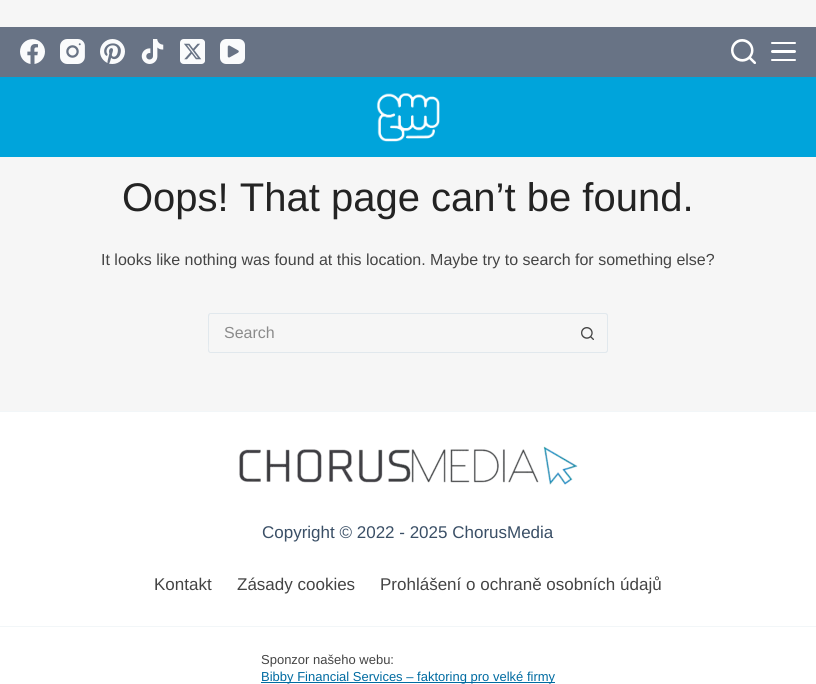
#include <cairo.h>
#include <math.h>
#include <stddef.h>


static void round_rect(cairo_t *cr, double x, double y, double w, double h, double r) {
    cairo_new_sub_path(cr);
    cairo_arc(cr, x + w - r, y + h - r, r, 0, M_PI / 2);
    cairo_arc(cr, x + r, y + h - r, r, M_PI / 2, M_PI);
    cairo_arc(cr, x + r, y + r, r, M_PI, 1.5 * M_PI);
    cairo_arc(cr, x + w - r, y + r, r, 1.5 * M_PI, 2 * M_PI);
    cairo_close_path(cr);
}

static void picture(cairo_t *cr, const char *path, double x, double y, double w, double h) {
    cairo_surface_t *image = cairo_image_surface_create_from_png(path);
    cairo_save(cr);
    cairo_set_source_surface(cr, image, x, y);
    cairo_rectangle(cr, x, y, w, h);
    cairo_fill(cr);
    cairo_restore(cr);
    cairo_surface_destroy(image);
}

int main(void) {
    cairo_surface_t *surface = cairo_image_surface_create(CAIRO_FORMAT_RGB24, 816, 684);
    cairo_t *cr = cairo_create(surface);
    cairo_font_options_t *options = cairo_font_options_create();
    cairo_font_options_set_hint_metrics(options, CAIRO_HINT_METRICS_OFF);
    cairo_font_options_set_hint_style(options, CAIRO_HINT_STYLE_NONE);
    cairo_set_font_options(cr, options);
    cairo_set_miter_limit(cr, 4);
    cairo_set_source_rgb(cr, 0.961, 0.961, 0.961);
    cairo_paint(cr);
    cairo_set_source_rgb(cr, 0.408, 0.451, 0.522);
    cairo_rectangle(cr, 0, 27, 816, 50);
    cairo_fill(cr);
    picture(cr, "img1.png", 20, 39, 25, 25);
    picture(cr, "img2.png", 60, 39, 25, 25);
    picture(cr, "img3.png", 100, 39, 25, 25);
    picture(cr, "img4.png", 141, 39, 23, 25);
    picture(cr, "img5.png", 180, 39, 25, 25);
    picture(cr, "img6.png", 220, 39, 25, 25);
    picture(cr, "img7.png", 731, 39, 25, 25);
    cairo_set_source_rgb(cr, 1, 1, 1);
    round_rect(cr, 771, 42, 25, 2, 1);
    cairo_fill(cr);
    round_rect(cr, 771, 50, 25, 3, 1.5);
    cairo_fill(cr);
    round_rect(cr, 771, 59, 25, 2, 1);
    cairo_fill(cr);
    cairo_set_source_rgb(cr, 0, 0.643, 0.859);
    cairo_rectangle(cr, 0, 77, 816, 80);
    cairo_fill(cr);
    picture(cr, "img8.png", 376, 93, 64, 49);
    cairo_select_font_face(cr, "Liberation Sans", CAIRO_FONT_SLANT_NORMAL, CAIRO_FONT_WEIGHT_NORMAL);
    cairo_set_font_size(cr, 40);
    cairo_set_source_rgb(cr, 0.137, 0.137, 0.137);
    cairo_move_to(cr, 122, 211);
    cairo_show_text(cr, "Oops! That page can’t be found.");
    cairo_set_font_size(cr, 16);
    cairo_set_source_rgb(cr, 0.267, 0.267, 0.267);
    cairo_move_to(cr, 101, 265);
    cairo_show_text(cr, "It looks like nothing was found at this location. Maybe try to search for something else?");
    cairo_set_source_rgb(cr, 0.882, 0.91, 0.929);
    cairo_set_fill_rule(cr, CAIRO_FILL_RULE_EVEN_ODD);
    cairo_new_path(cr);
    cairo_move_to(cr, 211, 313);
    cairo_line_to(cr, 568, 313);
    cairo_line_to(cr, 568, 353);
    cairo_line_to(cr, 211, 353);
    cairo_curve_to(cr, 209, 353, 208, 352, 208, 350);
    cairo_line_to(cr, 208, 316);
    cairo_curve_to(cr, 208, 314, 209, 313, 211, 313);
    cairo_close_path(cr);
    cairo_move_to(cr, 211, 314);
    cairo_line_to(cr, 568, 314);
    cairo_line_to(cr, 568, 352);
    cairo_line_to(cr, 210, 352);
    cairo_curve_to(cr, 208, 350, 209, 345, 209, 344);
    cairo_line_to(cr, 209, 316);
    cairo_line_to(cr, 210, 314);
    cairo_close_path(cr);
    cairo_fill(cr);
    cairo_set_source_rgb(cr, 0.545, 0.545, 0.545);
    cairo_move_to(cr, 224, 338);
    cairo_show_text(cr, "Search");
    cairo_set_source_rgb(cr, 0.882, 0.91, 0.929);
    cairo_new_path(cr);
    cairo_move_to(cr, 568, 313);
    cairo_line_to(cr, 605, 313);
    cairo_curve_to(cr, 607, 313, 608, 314, 608, 316);
    cairo_line_to(cr, 608, 350);
    cairo_curve_to(cr, 608, 352, 607, 353, 605, 353);
    cairo_line_to(cr, 568, 353);
    cairo_close_path(cr);
    cairo_move_to(cr, 568, 314);
    cairo_line_to(cr, 605, 314);
    cairo_curve_to(cr, 606, 314, 607, 315, 607, 316);
    cairo_line_to(cr, 607, 350);
    cairo_curve_to(cr, 607, 351, 606, 352, 605, 352);
    cairo_line_to(cr, 568, 352);
    cairo_close_path(cr);
    cairo_fill(cr);
    picture(cr, "img9.png", 581, 327, 13, 13);
    cairo_set_source_rgb(cr, 1, 1, 1);
    cairo_rectangle(cr, 0, 412, 816, 214);
    cairo_fill(cr);
    cairo_set_source_rgb(cr, 0.949, 0.961, 0.969);
    cairo_rectangle(cr, 0, 411, 816, 1);
    cairo_fill(cr);
    cairo_rectangle(cr, 0, 626, 816, 1);
    cairo_fill(cr);
    picture(cr, "img10.png", 239, 446, 339, 39);
    cairo_set_font_size(cr, 17);
    cairo_set_source_rgb(cr, 0.227, 0.31, 0.4);
    cairo_move_to(cr, 262, 538);
    cairo_show_text(cr, "Copyright © 2022 - 2025 ChorusMedia");
    cairo_set_source_rgb(cr, 0.267, 0.267, 0.267);
    cairo_move_to(cr, 154, 590);
    cairo_show_text(cr, "Kontakt");
    cairo_move_to(cr, 237, 590);
    cairo_show_text(cr, "Zásady cookies");
    cairo_move_to(cr, 380, 590);
    cairo_show_text(cr, "Prohlášení o ochraně osobních údajů");
    cairo_set_source_rgb(cr, 1, 1, 1);
    cairo_rectangle(cr, 0, 627, 816, 57);
    cairo_fill(cr);
    cairo_set_font_size(cr, 13);
    cairo_set_source_rgb(cr, 0.267, 0.267, 0.267);
    cairo_move_to(cr, 261, 664);
    cairo_show_text(cr, "Sponzor našeho webu:");
    cairo_set_source_rgb(cr, 0, 0.42, 0.631);
    cairo_rectangle(cr, 261, 682, 294, 1);
    cairo_fill(cr);
    cairo_move_to(cr, 261, 681);
    cairo_show_text(cr, "Bibby Financial Services – faktoring pro velké firmy");
    cairo_surface_write_to_png(surface, "page.png");
    cairo_font_options_destroy(options);
    cairo_destroy(cr);
    cairo_surface_destroy(surface);
    return 0;
}
